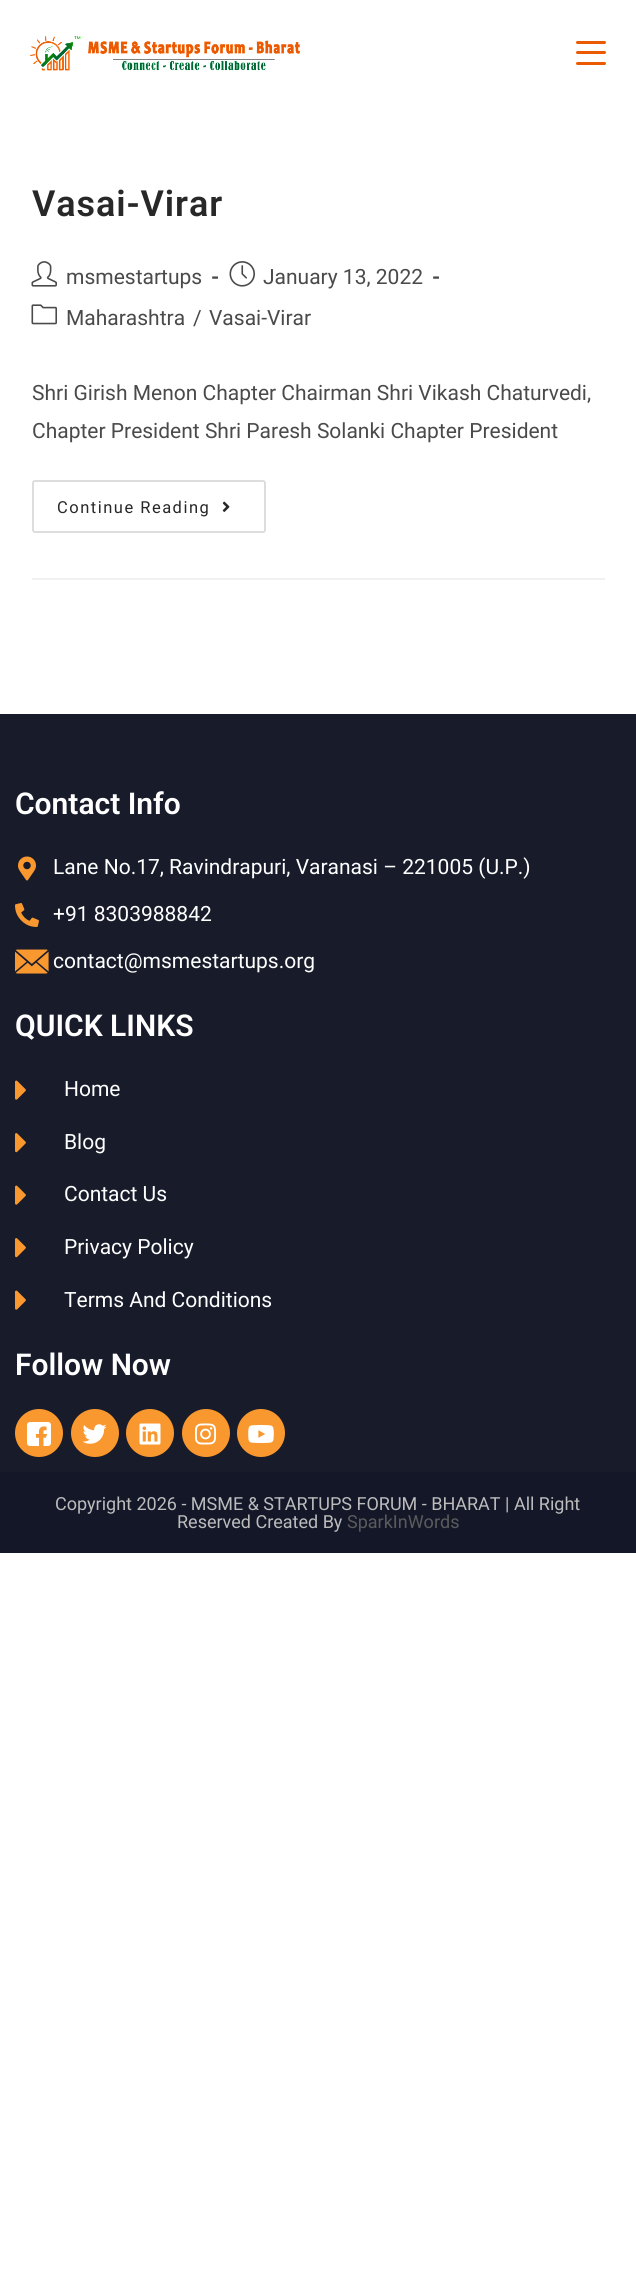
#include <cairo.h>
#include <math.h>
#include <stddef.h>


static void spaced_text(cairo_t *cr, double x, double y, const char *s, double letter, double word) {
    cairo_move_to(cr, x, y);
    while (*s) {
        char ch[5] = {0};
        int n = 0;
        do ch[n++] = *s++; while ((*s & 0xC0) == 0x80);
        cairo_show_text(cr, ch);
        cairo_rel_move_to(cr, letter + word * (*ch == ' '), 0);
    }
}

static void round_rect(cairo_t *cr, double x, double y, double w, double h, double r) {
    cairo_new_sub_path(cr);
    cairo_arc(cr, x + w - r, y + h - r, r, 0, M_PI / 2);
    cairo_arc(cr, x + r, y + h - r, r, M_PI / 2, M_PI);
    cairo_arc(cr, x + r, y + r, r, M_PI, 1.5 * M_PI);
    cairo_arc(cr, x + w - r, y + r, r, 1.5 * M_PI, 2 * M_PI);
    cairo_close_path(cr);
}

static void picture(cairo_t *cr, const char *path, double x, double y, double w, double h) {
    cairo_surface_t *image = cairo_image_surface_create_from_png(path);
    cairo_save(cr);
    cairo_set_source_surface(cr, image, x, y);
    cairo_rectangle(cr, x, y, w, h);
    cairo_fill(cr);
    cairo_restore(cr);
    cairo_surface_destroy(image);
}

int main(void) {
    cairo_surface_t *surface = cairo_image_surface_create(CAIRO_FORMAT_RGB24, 636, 2289);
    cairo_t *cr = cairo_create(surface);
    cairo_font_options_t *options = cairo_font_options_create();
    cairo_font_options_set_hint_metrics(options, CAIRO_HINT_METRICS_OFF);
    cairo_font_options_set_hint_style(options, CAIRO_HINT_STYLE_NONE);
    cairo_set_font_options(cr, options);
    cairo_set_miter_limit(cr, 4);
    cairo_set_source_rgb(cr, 1, 1, 1);
    cairo_paint(cr);
    picture(cr, "img1.png", 30, 36, 270, 35);
    cairo_set_source_rgb(cr, 0.922, 0.353, 0);
    round_rect(cr, 576, 62, 30, 3, 1.5);
    cairo_fill(cr);
    round_rect(cr, 576, 41, 30, 3, 1.5);
    cairo_fill(cr);
    round_rect(cr, 576, 51, 30, 3, 1.5);
    cairo_fill(cr);
    cairo_set_source_rgb(cr, 0.945, 0.945, 0.945);
    cairo_rectangle(cr, 32, 578, 573, 2);
    cairo_fill(cr);
    cairo_select_font_face(cr, "Roboto SemiBold", CAIRO_FONT_SLANT_NORMAL, CAIRO_FONT_WEIGHT_NORMAL);
    cairo_set_font_size(cr, 36);
    cairo_set_source_rgb(cr, 0.157, 0.157, 0.157);
    spaced_text(cr, 32, 216, "Vasai-Virar", 0.9, 0);
    picture(cr, "img2.png", 31, 261, 26, 26);
    cairo_select_font_face(cr, "Roboto", CAIRO_FONT_SLANT_NORMAL, CAIRO_FONT_WEIGHT_NORMAL);
    cairo_set_font_size(cr, 21);
    cairo_set_source_rgb(cr, 0.29, 0.29, 0.29);
    cairo_move_to(cr, 66, 284);
    cairo_show_text(cr, "msmestartups");
    cairo_select_font_face(cr, "Roboto", CAIRO_FONT_SLANT_NORMAL, CAIRO_FONT_WEIGHT_BOLD);
    cairo_move_to(cr, 211, 284);
    cairo_show_text(cr, "-");
    picture(cr, "img3.png", 229, 261, 26, 26);
    cairo_select_font_face(cr, "Roboto", CAIRO_FONT_SLANT_NORMAL, CAIRO_FONT_WEIGHT_NORMAL);
    cairo_move_to(cr, 263, 284);
    cairo_show_text(cr, "January 13, 2022");
    cairo_select_font_face(cr, "Roboto", CAIRO_FONT_SLANT_NORMAL, CAIRO_FONT_WEIGHT_BOLD);
    cairo_move_to(cr, 432, 284);
    cairo_show_text(cr, "-");
    picture(cr, "img4.png", 31, 304, 26, 21);
    cairo_select_font_face(cr, "Roboto", CAIRO_FONT_SLANT_NORMAL, CAIRO_FONT_WEIGHT_NORMAL);
    cairo_move_to(cr, 66, 325);
    cairo_show_text(cr, "Maharashtra");
    cairo_move_to(cr, 193, 325);
    cairo_show_text(cr, "/");
    cairo_move_to(cr, 209, 325);
    cairo_show_text(cr, "Vasai-Virar");
    cairo_move_to(cr, 32, 400);
    cairo_show_text(cr, "Shri Girish Menon Chapter Chairman Shri Vikash Chaturvedi,");
    cairo_move_to(cr, 32, 438);
    cairo_show_text(cr, "Chapter President Shri Paresh Solanki Chapter President");
    round_rect(cr, 33, 481, 232, 51, 2);
    cairo_set_source_rgb(cr, 0.867, 0.867, 0.867);
    cairo_stroke(cr);
    cairo_set_font_size(cr, 16.5);
    cairo_set_source_rgb(cr, 0.157, 0.157, 0.157);
    spaced_text(cr, 57, 513, "Continue Reading", 1.5, 0);
    picture(cr, "img5.png", 222, 501, 8, 11);
    cairo_set_source_rgb(cr, 0.094, 0.106, 0.165);
    cairo_rectangle(cr, 0, 714, 636, 758);
    cairo_fill(cr);
    cairo_select_font_face(cr, "Roboto SemiBold", CAIRO_FONT_SLANT_NORMAL, CAIRO_FONT_WEIGHT_NORMAL);
    cairo_set_font_size(cr, 30);
    cairo_set_source_rgb(cr, 1, 1, 1);
    cairo_move_to(cr, 15, 814);
    cairo_show_text(cr, "Contact Info");
    picture(cr, "img6.png", 18, 856, 18, 25);
    cairo_select_font_face(cr, "Roboto", CAIRO_FONT_SLANT_NORMAL, CAIRO_FONT_WEIGHT_NORMAL);
    cairo_set_font_size(cr, 21);
    cairo_move_to(cr, 53, 874);
    cairo_show_text(cr, "Lane No.17, Ravindrapuri, Varanasi – 221005 (U.P.)");
    picture(cr, "img7.png", 15, 903, 24, 24);
    cairo_move_to(cr, 53, 921);
    cairo_show_text(cr, "+91 8303988842");
    picture(cr, "img8.png", 15, 949, 34, 25);
    cairo_move_to(cr, 53, 968);
    cairo_show_text(cr, "contact@msmestartups.org");
    cairo_select_font_face(cr, "Roboto SemiBold", CAIRO_FONT_SLANT_NORMAL, CAIRO_FONT_WEIGHT_NORMAL);
    cairo_set_font_size(cr, 30);
    cairo_move_to(cr, 15, 1036);
    cairo_show_text(cr, "QUICK LINKS");
    picture(cr, "img9.png", 15, 1080, 11, 20);
    cairo_select_font_face(cr, "Roboto", CAIRO_FONT_SLANT_NORMAL, CAIRO_FONT_WEIGHT_NORMAL);
    cairo_set_font_size(cr, 21);
    cairo_move_to(cr, 64, 1096);
    cairo_show_text(cr, "Home");
    picture(cr, "img10.png", 15, 1133, 11, 20);
    cairo_move_to(cr, 64, 1149);
    cairo_show_text(cr, "Blog");
    picture(cr, "img9.png", 15, 1185, 11, 20);
    cairo_move_to(cr, 64, 1201);
    cairo_show_text(cr, "Contact Us");
    picture(cr, "img10.png", 15, 1238, 11, 20);
    cairo_move_to(cr, 64, 1254);
    cairo_show_text(cr, "Privacy Policy");
    picture(cr, "img9.png", 15, 1290, 11, 20);
    cairo_move_to(cr, 64, 1307);
    cairo_show_text(cr, "Terms And Conditions");
    cairo_select_font_face(cr, "Roboto SemiBold", CAIRO_FONT_SLANT_NORMAL, CAIRO_FONT_WEIGHT_NORMAL);
    cairo_set_font_size(cr, 30);
    cairo_move_to(cr, 15, 1375);
    cairo_show_text(cr, "Follow Now");
    cairo_set_source_rgb(cr, 0.976, 0.596, 0.184);
    cairo_new_path(cr);
    cairo_arc(cr, 39, 1433, 24, 0, 2 * M_PI);
    cairo_fill(cr);
    picture(cr, "img11.png", 27, 1422, 24, 24);
    cairo_arc(cr, 95, 1433, 24, 0, 2 * M_PI);
    cairo_fill(cr);
    picture(cr, "img12.png", 82, 1424, 25, 20);
    cairo_arc(cr, 150, 1433, 24, 0, 2 * M_PI);
    cairo_fill(cr);
    picture(cr, "img13.png", 139, 1423, 22, 22);
    cairo_arc(cr, 206, 1433, 24, 0, 2 * M_PI);
    cairo_fill(cr);
    picture(cr, "img14.png", 195, 1423, 22, 22);
    cairo_arc(cr, 261, 1433, 24, 0, 2 * M_PI);
    cairo_fill(cr);
    picture(cr, "img15.png", 248, 1425, 26, 18);
    cairo_set_source_rgb(cr, 0.078, 0.09, 0.157);
    cairo_rectangle(cr, 0, 1472, 636, 81);
    cairo_fill(cr);
    cairo_select_font_face(cr, "Roboto", CAIRO_FONT_SLANT_NORMAL, CAIRO_FONT_WEIGHT_NORMAL);
    cairo_set_font_size(cr, 18);
    cairo_set_source_rgb(cr, 0.737, 0.737, 0.737);
    cairo_move_to(cr, 55, 1510);
    cairo_show_text(cr, "Copyright 2026 - MSME & STARTUPS FORUM - BHARAT | All Right");
    cairo_move_to(cr, 177, 1528);
    cairo_show_text(cr, "Reserved Created By");
    cairo_set_source_rgb(cr, 0.357, 0.357, 0.357);
    cairo_move_to(cr, 347, 1528);
    cairo_show_text(cr, "SparkInWords");
    cairo_surface_write_to_png(surface, "page.png");
    cairo_font_options_destroy(options);
    cairo_destroy(cr);
    cairo_surface_destroy(surface);
    return 0;
}
